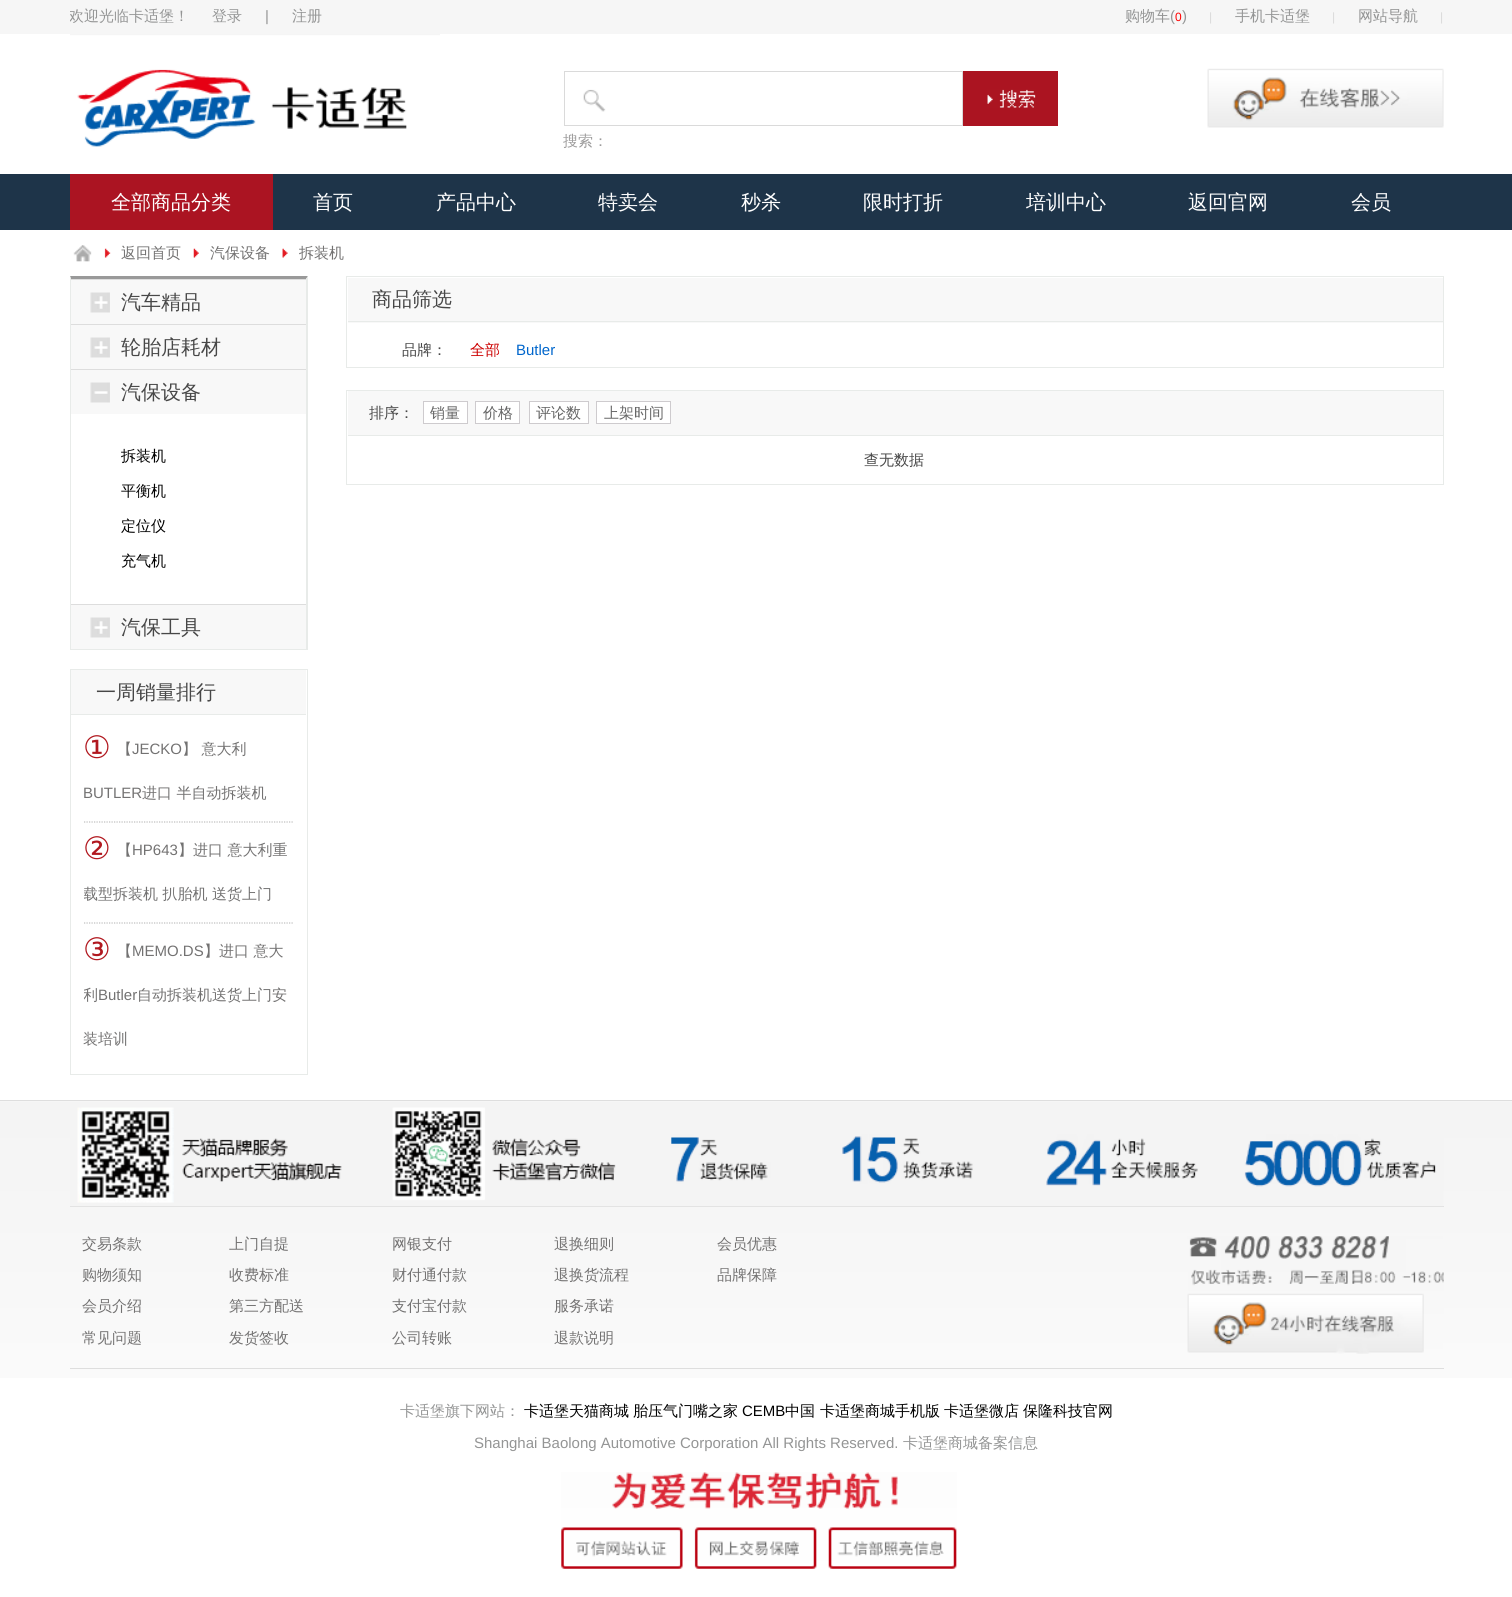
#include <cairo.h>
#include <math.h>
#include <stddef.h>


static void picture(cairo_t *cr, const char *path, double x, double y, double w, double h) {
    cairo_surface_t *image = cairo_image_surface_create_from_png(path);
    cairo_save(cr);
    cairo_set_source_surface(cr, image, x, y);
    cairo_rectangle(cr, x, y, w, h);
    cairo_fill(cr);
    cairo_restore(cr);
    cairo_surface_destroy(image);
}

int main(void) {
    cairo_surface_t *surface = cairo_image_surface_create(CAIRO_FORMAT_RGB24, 1512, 1597);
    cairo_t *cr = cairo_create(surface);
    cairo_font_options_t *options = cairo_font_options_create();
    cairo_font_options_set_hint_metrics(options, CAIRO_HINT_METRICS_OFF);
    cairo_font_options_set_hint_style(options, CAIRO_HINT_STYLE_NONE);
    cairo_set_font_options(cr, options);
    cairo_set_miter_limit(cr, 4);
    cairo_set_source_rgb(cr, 1, 1, 1);
    cairo_paint(cr);
    cairo_set_source_rgb(cr, 0.961, 0.961, 0.961);
    cairo_rectangle(cr, 0, 0, 1512, 34);
    cairo_fill(cr);
    cairo_save(cr);
    cairo_rectangle(cr, 70, 0, 1374, 34);
    cairo_clip(cr);
    cairo_select_font_face(cr, "WenQuanYi Zen Hei Medium", CAIRO_FONT_SLANT_NORMAL, CAIRO_FONT_WEIGHT_NORMAL);
    cairo_set_font_size(cr, 15);
    cairo_set_source_rgb(cr, 0.58, 0.584, 0.584);
    cairo_move_to(cr, 69, 21);
    cairo_show_text(cr, "欢迎光临卡适堡！");
    cairo_restore(cr);
    cairo_select_font_face(cr, "WenQuanYi Zen Hei Medium", CAIRO_FONT_SLANT_NORMAL, CAIRO_FONT_WEIGHT_NORMAL);
    cairo_set_font_size(cr, 15);
    cairo_set_source_rgb(cr, 0.58, 0.584, 0.584);
    cairo_move_to(cr, 212, 21);
    cairo_show_text(cr, "登录");
    cairo_select_font_face(cr, "Liberation Sans", CAIRO_FONT_SLANT_NORMAL, CAIRO_FONT_WEIGHT_NORMAL);
    cairo_move_to(cr, 265, 21);
    cairo_show_text(cr, "|");
    cairo_select_font_face(cr, "WenQuanYi Zen Hei Medium", CAIRO_FONT_SLANT_NORMAL, CAIRO_FONT_WEIGHT_NORMAL);
    cairo_move_to(cr, 292, 21);
    cairo_show_text(cr, "注册");
    cairo_move_to(cr, 1125, 21);
    cairo_show_text(cr, "购物车");
    cairo_select_font_face(cr, "Liberation Sans", CAIRO_FONT_SLANT_NORMAL, CAIRO_FONT_WEIGHT_NORMAL);
    cairo_move_to(cr, 1170, 21);
    cairo_show_text(cr, "(");
    cairo_set_font_size(cr, 12);
    cairo_set_source_rgb(cr, 1, 0, 0);
    cairo_move_to(cr, 1175, 21);
    cairo_show_text(cr, "0");
    cairo_set_font_size(cr, 15);
    cairo_set_source_rgb(cr, 0.58, 0.584, 0.584);
    cairo_move_to(cr, 1182, 21);
    cairo_show_text(cr, ")");
    cairo_set_font_size(cr, 12);
    cairo_set_source_rgb(cr, 0.855, 0.855, 0.855);
    cairo_move_to(cr, 1209, 21);
    cairo_show_text(cr, "|");
    cairo_select_font_face(cr, "WenQuanYi Zen Hei Medium", CAIRO_FONT_SLANT_NORMAL, CAIRO_FONT_WEIGHT_NORMAL);
    cairo_set_font_size(cr, 15);
    cairo_set_source_rgb(cr, 0.58, 0.584, 0.584);
    cairo_move_to(cr, 1235, 21);
    cairo_show_text(cr, "手机卡适堡");
    cairo_select_font_face(cr, "Liberation Sans", CAIRO_FONT_SLANT_NORMAL, CAIRO_FONT_WEIGHT_NORMAL);
    cairo_set_font_size(cr, 12);
    cairo_set_source_rgb(cr, 0.855, 0.855, 0.855);
    cairo_move_to(cr, 1332, 21);
    cairo_show_text(cr, "|");
    cairo_select_font_face(cr, "WenQuanYi Zen Hei Medium", CAIRO_FONT_SLANT_NORMAL, CAIRO_FONT_WEIGHT_NORMAL);
    cairo_set_font_size(cr, 15);
    cairo_set_source_rgb(cr, 0.58, 0.584, 0.584);
    cairo_move_to(cr, 1358, 21);
    cairo_show_text(cr, "网站导航");
    cairo_select_font_face(cr, "Liberation Sans", CAIRO_FONT_SLANT_NORMAL, CAIRO_FONT_WEIGHT_NORMAL);
    cairo_set_font_size(cr, 12);
    cairo_set_source_rgb(cr, 0.855, 0.855, 0.855);
    cairo_move_to(cr, 1440, 21);
    cairo_show_text(cr, "|");
    picture(cr, "img1.png", 70, 34, 370, 113);
    picture(cr, "img2.png", 1207, 68, 237, 60);
    picture(cr, "img3.png", 583, 89, 23, 23);
    cairo_rectangle(cr, 564.5, 71.5, 398, 54);
    cairo_set_line_width(cr, 1);
    cairo_stroke(cr);
    cairo_set_source_rgb(cr, 0.671, 0.082, 0.129);
    cairo_rectangle(cr, 963, 71, 95, 55);
    cairo_fill(cr);
    picture(cr, "img4.png", 987, 89, 49, 19);
    cairo_select_font_face(cr, "WenQuanYi Zen Hei Medium", CAIRO_FONT_SLANT_NORMAL, CAIRO_FONT_WEIGHT_NORMAL);
    cairo_set_font_size(cr, 15);
    cairo_set_source_rgb(cr, 0.616, 0.612, 0.612);
    cairo_move_to(cr, 563, 146);
    cairo_show_text(cr, "搜索：");
    cairo_set_source_rgb(cr, 0.118, 0.204, 0.286);
    cairo_rectangle(cr, 0, 174, 1512, 56);
    cairo_fill(cr);
    cairo_set_source_rgb(cr, 0.671, 0.082, 0.133);
    cairo_rectangle(cr, 70, 174, 203, 56);
    cairo_fill(cr);
    cairo_set_font_size(cr, 20);
    cairo_set_source_rgb(cr, 1, 1, 1);
    cairo_move_to(cr, 111, 209);
    cairo_show_text(cr, "全部商品分类");
    cairo_move_to(cr, 313, 209);
    cairo_show_text(cr, "首页");
    cairo_move_to(cr, 436, 209);
    cairo_show_text(cr, "产品中心");
    cairo_move_to(cr, 598, 209);
    cairo_show_text(cr, "特卖会");
    cairo_move_to(cr, 741, 209);
    cairo_show_text(cr, "秒杀");
    cairo_move_to(cr, 863, 209);
    cairo_show_text(cr, "限时打折");
    cairo_move_to(cr, 1026, 209);
    cairo_show_text(cr, "培训中心");
    cairo_move_to(cr, 1188, 209);
    cairo_show_text(cr, "返回官网");
    cairo_move_to(cr, 1351, 209);
    cairo_show_text(cr, "会员");
    picture(cr, "img5.png", 73, 245, 19, 17);
    picture(cr, "img6.png", 104, 248, 7, 10);
    cairo_set_font_size(cr, 15);
    cairo_set_source_rgb(cr, 0.451, 0.447, 0.447);
    cairo_move_to(cr, 121, 258);
    cairo_show_text(cr, "返回首页");
    picture(cr, "img7.png", 193, 248, 6, 10);
    cairo_move_to(cr, 210, 258);
    cairo_show_text(cr, "汽保设备");
    picture(cr, "img8.png", 282, 248, 6, 10);
    cairo_move_to(cr, 299, 258);
    cairo_show_text(cr, "拆装机");
    cairo_set_source_rgb(cr, 0.6, 0.6, 0.6);
    cairo_new_path(cr);
    cairo_move_to(cr, 70, 276);
    cairo_line_to(cr, 308, 276);
    cairo_line_to(cr, 306, 279);
    cairo_line_to(cr, 71, 279);
    cairo_close_path(cr);
    cairo_fill(cr);
    cairo_set_source_rgb(cr, 0.91, 0.918, 0.914);
    cairo_new_path(cr);
    cairo_move_to(cr, 308, 276);
    cairo_line_to(cr, 308, 650);
    cairo_line_to(cr, 306, 649);
    cairo_line_to(cr, 306, 279);
    cairo_close_path(cr);
    cairo_fill(cr);
    cairo_rectangle(cr, 70, 649, 238, 1);
    cairo_fill(cr);
    cairo_new_path(cr);
    cairo_move_to(cr, 70, 650);
    cairo_line_to(cr, 70, 276);
    cairo_line_to(cr, 71, 279);
    cairo_line_to(cr, 71, 649);
    cairo_close_path(cr);
    cairo_fill(cr);
    cairo_set_source_rgb(cr, 0.969, 0.969, 0.969);
    cairo_rectangle(cr, 71, 280, 235, 44);
    cairo_fill(cr);
    picture(cr, "img9.png", 90, 292, 20, 21);
    cairo_set_source_rgb(cr, 0.867, 0.867, 0.867);
    cairo_rectangle(cr, 71, 279, 235, 1);
    cairo_fill(cr);
    cairo_set_font_size(cr, 20);
    cairo_set_source_rgb(cr, 0.278, 0.278, 0.278);
    cairo_move_to(cr, 121, 309);
    cairo_show_text(cr, "汽车精品");
    cairo_set_source_rgb(cr, 0.969, 0.969, 0.969);
    cairo_rectangle(cr, 71, 325, 235, 44);
    cairo_fill(cr);
    picture(cr, "img9.png", 90, 337, 20, 21);
    cairo_set_source_rgb(cr, 0.867, 0.867, 0.867);
    cairo_rectangle(cr, 71, 324, 235, 1);
    cairo_fill(cr);
    cairo_set_source_rgb(cr, 0.278, 0.278, 0.278);
    cairo_move_to(cr, 121, 354);
    cairo_show_text(cr, "轮胎店耗材");
    cairo_set_source_rgb(cr, 0.969, 0.969, 0.969);
    cairo_rectangle(cr, 71, 370, 235, 44);
    cairo_fill(cr);
    picture(cr, "img10.png", 90, 382, 20, 21);
    cairo_set_source_rgb(cr, 0.867, 0.867, 0.867);
    cairo_rectangle(cr, 71, 369, 235, 1);
    cairo_fill(cr);
    cairo_set_source_rgb(cr, 0.278, 0.278, 0.278);
    cairo_move_to(cr, 121, 399);
    cairo_show_text(cr, "汽保设备");
    cairo_set_font_size(cr, 15);
    cairo_set_source_rgb(cr, 0, 0, 0);
    cairo_move_to(cr, 121, 461);
    cairo_show_text(cr, "拆装机");
    cairo_move_to(cr, 121, 496);
    cairo_show_text(cr, "平衡机");
    cairo_move_to(cr, 121, 531);
    cairo_show_text(cr, "定位仪");
    cairo_move_to(cr, 121, 566);
    cairo_show_text(cr, "充气机");
    cairo_set_source_rgb(cr, 0.969, 0.969, 0.969);
    cairo_rectangle(cr, 71, 605, 235, 44);
    cairo_fill(cr);
    picture(cr, "img9.png", 90, 617, 20, 21);
    cairo_set_source_rgb(cr, 0.867, 0.867, 0.867);
    cairo_rectangle(cr, 71, 604, 235, 1);
    cairo_fill(cr);
    cairo_set_font_size(cr, 20);
    cairo_set_source_rgb(cr, 0.278, 0.278, 0.278);
    cairo_move_to(cr, 121, 634);
    cairo_show_text(cr, "汽保工具");
    cairo_rectangle(cr, 70.5, 669.5, 237, 405);
    cairo_set_source_rgb(cr, 0.91, 0.918, 0.914);
    cairo_stroke(cr);
    cairo_set_source_rgb(cr, 0.969, 0.969, 0.969);
    cairo_rectangle(cr, 71, 670, 235, 44);
    cairo_fill(cr);
    cairo_set_source_rgb(cr, 0.91, 0.918, 0.914);
    cairo_rectangle(cr, 71, 714, 235, 1);
    cairo_fill(cr);
    cairo_set_source_rgb(cr, 0.278, 0.278, 0.278);
    cairo_move_to(cr, 96, 699);
    cairo_show_text(cr, "一周销量排行");
    cairo_select_font_face(cr, "DejaVu Sans", CAIRO_FONT_SLANT_NORMAL, CAIRO_FONT_WEIGHT_NORMAL);
    cairo_set_font_size(cr, 31);
    cairo_set_source_rgb(cr, 0.694, 0.094, 0.122);
    cairo_move_to(cr, 83, 758);
    cairo_show_text(cr, "①");
    cairo_select_font_face(cr, "WenQuanYi Zen Hei Medium", CAIRO_FONT_SLANT_NORMAL, CAIRO_FONT_WEIGHT_NORMAL);
    cairo_set_font_size(cr, 15);
    cairo_set_source_rgb(cr, 0.451, 0.447, 0.447);
    cairo_move_to(cr, 117, 754);
    cairo_show_text(cr, "【");
    cairo_select_font_face(cr, "Liberation Sans", CAIRO_FONT_SLANT_NORMAL, CAIRO_FONT_WEIGHT_NORMAL);
    cairo_move_to(cr, 132, 754);
    cairo_show_text(cr, "JECKO");
    cairo_select_font_face(cr, "WenQuanYi Zen Hei Medium", CAIRO_FONT_SLANT_NORMAL, CAIRO_FONT_WEIGHT_NORMAL);
    cairo_move_to(cr, 182, 754);
    cairo_show_text(cr, "】 意大利");
    cairo_select_font_face(cr, "Liberation Sans", CAIRO_FONT_SLANT_NORMAL, CAIRO_FONT_WEIGHT_NORMAL);
    cairo_move_to(cr, 83, 798);
    cairo_show_text(cr, "BUTLER");
    cairo_select_font_face(cr, "WenQuanYi Zen Hei Medium", CAIRO_FONT_SLANT_NORMAL, CAIRO_FONT_WEIGHT_NORMAL);
    cairo_move_to(cr, 142, 798);
    cairo_show_text(cr, "进口 半自动拆装机");
    cairo_new_path(cr);
    cairo_move_to(cr, 84, 822);
    cairo_line_to(cr, 294, 822);
    cairo_set_source_rgb(cr, 0.745, 0.745, 0.745);
    cairo_set_line_width(cr, 1.2);
    cairo_set_dash(cr, (double[]){1.25, 1.25}, 2, 0);
    cairo_stroke(cr);
    cairo_select_font_face(cr, "DejaVu Sans", CAIRO_FONT_SLANT_NORMAL, CAIRO_FONT_WEIGHT_NORMAL);
    cairo_set_font_size(cr, 31);
    cairo_set_source_rgb(cr, 0.694, 0.094, 0.122);
    cairo_move_to(cr, 83, 859);
    cairo_show_text(cr, "②");
    cairo_select_font_face(cr, "WenQuanYi Zen Hei Medium", CAIRO_FONT_SLANT_NORMAL, CAIRO_FONT_WEIGHT_NORMAL);
    cairo_set_font_size(cr, 15);
    cairo_set_source_rgb(cr, 0.451, 0.447, 0.447);
    cairo_move_to(cr, 117, 855);
    cairo_show_text(cr, "【");
    cairo_select_font_face(cr, "Liberation Sans", CAIRO_FONT_SLANT_NORMAL, CAIRO_FONT_WEIGHT_NORMAL);
    cairo_move_to(cr, 132, 855);
    cairo_show_text(cr, "HP643");
    cairo_select_font_face(cr, "WenQuanYi Zen Hei Medium", CAIRO_FONT_SLANT_NORMAL, CAIRO_FONT_WEIGHT_NORMAL);
    cairo_move_to(cr, 178, 855);
    cairo_show_text(cr, "】进口 意大利重");
    cairo_save(cr);
    cairo_rectangle(cr, 84, 829, 210, 87);
    cairo_clip(cr);
    cairo_move_to(cr, 83, 899);
    cairo_show_text(cr, "载型拆装机 扒胎机 送货上门");
    cairo_restore(cr);
    cairo_new_path(cr);
    cairo_move_to(cr, 84, 923);
    cairo_line_to(cr, 294, 923);
    cairo_set_source_rgb(cr, 0.745, 0.745, 0.745);
    cairo_stroke(cr);
    cairo_select_font_face(cr, "DejaVu Sans", CAIRO_FONT_SLANT_NORMAL, CAIRO_FONT_WEIGHT_NORMAL);
    cairo_set_font_size(cr, 31);
    cairo_set_source_rgb(cr, 0.694, 0.094, 0.122);
    cairo_move_to(cr, 83, 960);
    cairo_show_text(cr, "③");
    cairo_select_font_face(cr, "WenQuanYi Zen Hei Medium", CAIRO_FONT_SLANT_NORMAL, CAIRO_FONT_WEIGHT_NORMAL);
    cairo_set_font_size(cr, 15);
    cairo_set_source_rgb(cr, 0.451, 0.447, 0.447);
    cairo_move_to(cr, 117, 956);
    cairo_show_text(cr, "【");
    cairo_select_font_face(cr, "Liberation Sans", CAIRO_FONT_SLANT_NORMAL, CAIRO_FONT_WEIGHT_NORMAL);
    cairo_move_to(cr, 132, 956);
    cairo_show_text(cr, "MEMO.DS");
    cairo_select_font_face(cr, "WenQuanYi Zen Hei Medium", CAIRO_FONT_SLANT_NORMAL, CAIRO_FONT_WEIGHT_NORMAL);
    cairo_move_to(cr, 204, 956);
    cairo_show_text(cr, "】进口 意大");
    cairo_save(cr);
    cairo_rectangle(cr, 84, 930, 210, 131);
    cairo_clip(cr);
    cairo_move_to(cr, 83, 1000);
    cairo_show_text(cr, "利");
    cairo_restore(cr);
    cairo_select_font_face(cr, "Liberation Sans", CAIRO_FONT_SLANT_NORMAL, CAIRO_FONT_WEIGHT_NORMAL);
    cairo_move_to(cr, 98, 1000);
    cairo_show_text(cr, "Butler");
    cairo_select_font_face(cr, "WenQuanYi Zen Hei Medium", CAIRO_FONT_SLANT_NORMAL, CAIRO_FONT_WEIGHT_NORMAL);
    cairo_move_to(cr, 137, 1000);
    cairo_show_text(cr, "自动拆装机送货上门安");
    cairo_move_to(cr, 83, 1044);
    cairo_show_text(cr, "装培训");
    cairo_rectangle(cr, 346.5, 276.5, 1097, 91);
    cairo_set_source_rgb(cr, 0.91, 0.918, 0.914);
    cairo_set_line_width(cr, 1);
    cairo_set_dash(cr, NULL, 0, 0);
    cairo_stroke(cr);
    cairo_set_source_rgb(cr, 0.969, 0.969, 0.969);
    cairo_rectangle(cr, 348, 278, 1095, 45);
    cairo_fill(cr);
    cairo_set_source_rgb(cr, 0.91, 0.918, 0.914);
    cairo_rectangle(cr, 348, 321, 1095, 1);
    cairo_fill(cr);
    cairo_set_font_size(cr, 20);
    cairo_set_source_rgb(cr, 0.278, 0.278, 0.278);
    cairo_move_to(cr, 372, 306);
    cairo_show_text(cr, "商品筛选");
    cairo_set_font_size(cr, 15);
    cairo_move_to(cr, 402, 355);
    cairo_show_text(cr, "品牌：");
    cairo_set_source_rgb(cr, 0.8, 0, 0);
    cairo_move_to(cr, 470, 355);
    cairo_show_text(cr, "全部");
    cairo_select_font_face(cr, "Liberation Sans", CAIRO_FONT_SLANT_NORMAL, CAIRO_FONT_WEIGHT_NORMAL);
    cairo_set_source_rgb(cr, 0, 0.4, 0.8);
    cairo_move_to(cr, 516, 355);
    cairo_show_text(cr, "Butler");
    cairo_rectangle(cr, 346.5, 390.5, 1097, 94);
    cairo_set_source_rgb(cr, 0.91, 0.918, 0.914);
    cairo_stroke(cr);
    cairo_set_source_rgb(cr, 0.969, 0.969, 0.969);
    cairo_rectangle(cr, 348, 391, 1095, 44);
    cairo_fill(cr);
    cairo_set_source_rgb(cr, 0.91, 0.918, 0.914);
    cairo_rectangle(cr, 348, 435, 1095, 1);
    cairo_fill(cr);
    cairo_select_font_face(cr, "WenQuanYi Zen Hei Medium", CAIRO_FONT_SLANT_NORMAL, CAIRO_FONT_WEIGHT_NORMAL);
    cairo_set_source_rgb(cr, 0.278, 0.278, 0.278);
    cairo_move_to(cr, 369, 418);
    cairo_show_text(cr, "排序：");
    cairo_set_source_rgb(cr, 1, 1, 1);
    cairo_rectangle(cr, 423.5, 401.5, 44, 22);
    cairo_fill_preserve(cr);
    cairo_set_source_rgb(cr, 0.808, 0.796, 0.808);
    cairo_stroke(cr);
    cairo_set_source_rgb(cr, 0.4, 0.4, 0.4);
    cairo_move_to(cr, 430, 418);
    cairo_show_text(cr, "销量");
    cairo_set_source_rgb(cr, 1, 1, 1);
    cairo_rectangle(cr, 475.5, 401.5, 44, 22);
    cairo_fill_preserve(cr);
    cairo_set_source_rgb(cr, 0.808, 0.796, 0.808);
    cairo_stroke(cr);
    cairo_set_source_rgb(cr, 0.4, 0.4, 0.4);
    cairo_move_to(cr, 483, 418);
    cairo_show_text(cr, "价格");
    cairo_set_source_rgb(cr, 1, 1, 1);
    cairo_rectangle(cr, 529.5, 401.5, 59, 22);
    cairo_fill_preserve(cr);
    cairo_set_source_rgb(cr, 0.808, 0.796, 0.808);
    cairo_stroke(cr);
    cairo_set_source_rgb(cr, 0.4, 0.4, 0.4);
    cairo_move_to(cr, 536, 418);
    cairo_show_text(cr, "评论数");
    cairo_set_source_rgb(cr, 1, 1, 1);
    cairo_rectangle(cr, 596.5, 401.5, 74, 22);
    cairo_fill_preserve(cr);
    cairo_set_source_rgb(cr, 0.808, 0.796, 0.808);
    cairo_stroke(cr);
    cairo_set_source_rgb(cr, 0.4, 0.4, 0.4);
    cairo_move_to(cr, 604, 418);
    cairo_show_text(cr, "上架时间");
    cairo_set_source_rgb(cr, 0.278, 0.278, 0.278);
    cairo_move_to(cr, 864, 465);
    cairo_show_text(cr, "查无数据");
    picture(cr, "img11.png", 0, 1101, 1512, 277);
    cairo_set_source_rgb(cr, 0.871, 0.871, 0.871);
    cairo_rectangle(cr, 0, 1100, 1512, 1);
    cairo_fill(cr);
    cairo_rectangle(cr, 70, 1206, 1374, 1);
    cairo_fill(cr);
    picture(cr, "img12.png", 70, 1107, 1374, 100);
    cairo_set_source_rgb(cr, 0.451, 0.447, 0.447);
    cairo_move_to(cr, 82, 1249);
    cairo_show_text(cr, "交易条款");
    cairo_move_to(cr, 82, 1280);
    cairo_show_text(cr, "购物须知");
    cairo_move_to(cr, 82, 1311);
    cairo_show_text(cr, "会员介绍");
    cairo_move_to(cr, 82, 1343);
    cairo_show_text(cr, "常见问题");
    cairo_move_to(cr, 229, 1249);
    cairo_show_text(cr, "上门自提");
    cairo_move_to(cr, 229, 1280);
    cairo_show_text(cr, "收费标准");
    cairo_move_to(cr, 229, 1311);
    cairo_show_text(cr, "第三方配送");
    cairo_move_to(cr, 229, 1343);
    cairo_show_text(cr, "发货签收");
    cairo_move_to(cr, 392, 1249);
    cairo_show_text(cr, "网银支付");
    cairo_move_to(cr, 392, 1280);
    cairo_show_text(cr, "财付通付款");
    cairo_move_to(cr, 392, 1311);
    cairo_show_text(cr, "支付宝付款");
    cairo_move_to(cr, 392, 1343);
    cairo_show_text(cr, "公司转账");
    cairo_move_to(cr, 554, 1249);
    cairo_show_text(cr, "退换细则");
    cairo_move_to(cr, 554, 1280);
    cairo_show_text(cr, "退换货流程");
    cairo_move_to(cr, 554, 1311);
    cairo_show_text(cr, "服务承诺");
    cairo_move_to(cr, 554, 1343);
    cairo_show_text(cr, "退款说明");
    cairo_move_to(cr, 717, 1249);
    cairo_show_text(cr, "会员优惠");
    cairo_move_to(cr, 717, 1280);
    cairo_show_text(cr, "品牌保障");
    picture(cr, "img13.png", 1187, 1236, 257, 118);
    cairo_set_source_rgb(cr, 0.871, 0.871, 0.871);
    cairo_rectangle(cr, 70, 1368, 1374, 1);
    cairo_fill(cr);
    cairo_set_source_rgb(cr, 0.58, 0.584, 0.584);
    cairo_move_to(cr, 400, 1416);
    cairo_show_text(cr, "卡适堡旗下网站：");
    cairo_set_source_rgb(cr, 0, 0, 0);
    cairo_move_to(cr, 524, 1416);
    cairo_show_text(cr, "卡适堡天猫商城");
    cairo_move_to(cr, 633, 1416);
    cairo_show_text(cr, "胎压气门嘴之家");
    cairo_select_font_face(cr, "Liberation Sans", CAIRO_FONT_SLANT_NORMAL, CAIRO_FONT_WEIGHT_NORMAL);
    cairo_move_to(cr, 742, 1416);
    cairo_show_text(cr, "CEMB");
    cairo_select_font_face(cr, "WenQuanYi Zen Hei Medium", CAIRO_FONT_SLANT_NORMAL, CAIRO_FONT_WEIGHT_NORMAL);
    cairo_move_to(cr, 785, 1416);
    cairo_show_text(cr, "中国");
    cairo_move_to(cr, 820, 1416);
    cairo_show_text(cr, "卡适堡商城手机版");
    cairo_move_to(cr, 944, 1416);
    cairo_show_text(cr, "卡适堡微店");
    cairo_move_to(cr, 1023, 1416);
    cairo_show_text(cr, "保隆科技官网");
    cairo_select_font_face(cr, "Liberation Sans", CAIRO_FONT_SLANT_NORMAL, CAIRO_FONT_WEIGHT_NORMAL);
    cairo_set_source_rgb(cr, 0.58, 0.584, 0.584);
    cairo_move_to(cr, 474, 1448);
    cairo_show_text(cr, "Shanghai Baolong Automotive Corporation All Rights Reserved.");
    cairo_select_font_face(cr, "WenQuanYi Zen Hei Medium", CAIRO_FONT_SLANT_NORMAL, CAIRO_FONT_WEIGHT_NORMAL);
    cairo_move_to(cr, 903, 1448);
    cairo_show_text(cr, "卡适堡商城备案信息");
    picture(cr, "img14.png", 561, 1472, 396, 97);
    cairo_surface_write_to_png(surface, "page.png");
    cairo_font_options_destroy(options);
    cairo_destroy(cr);
    cairo_surface_destroy(surface);
    return 0;
}
